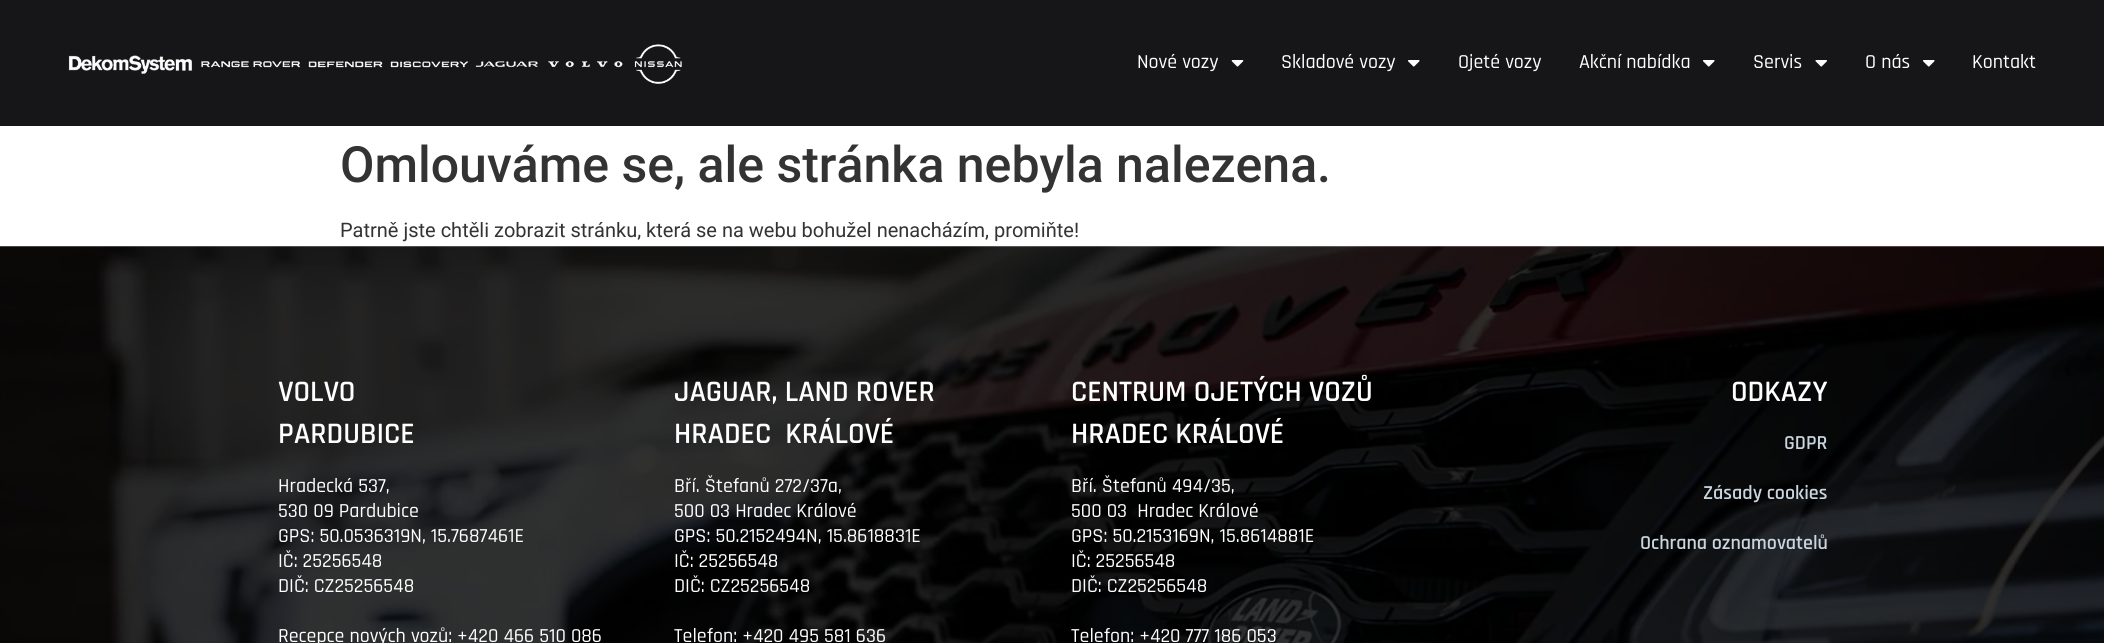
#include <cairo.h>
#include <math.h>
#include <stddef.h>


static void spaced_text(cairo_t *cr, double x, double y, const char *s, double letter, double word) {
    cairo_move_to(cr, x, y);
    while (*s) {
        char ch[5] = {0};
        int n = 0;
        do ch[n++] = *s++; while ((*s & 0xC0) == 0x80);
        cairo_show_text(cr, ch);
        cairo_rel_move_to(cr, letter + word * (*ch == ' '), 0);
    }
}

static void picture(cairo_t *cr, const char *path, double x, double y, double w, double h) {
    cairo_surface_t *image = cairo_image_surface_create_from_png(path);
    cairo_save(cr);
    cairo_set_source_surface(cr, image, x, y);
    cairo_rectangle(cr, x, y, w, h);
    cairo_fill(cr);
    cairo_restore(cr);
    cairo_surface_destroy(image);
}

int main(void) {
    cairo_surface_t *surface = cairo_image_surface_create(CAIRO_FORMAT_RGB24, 2104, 643);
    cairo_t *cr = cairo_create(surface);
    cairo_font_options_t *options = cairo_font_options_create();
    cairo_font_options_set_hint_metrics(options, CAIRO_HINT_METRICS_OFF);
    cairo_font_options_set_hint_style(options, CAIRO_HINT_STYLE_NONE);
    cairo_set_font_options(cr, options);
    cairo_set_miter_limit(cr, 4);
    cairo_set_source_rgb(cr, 1, 1, 1);
    cairo_paint(cr);
    cairo_set_source_rgb(cr, 0.086, 0.086, 0.094);
    cairo_rectangle(cr, 0, 0, 2104, 126);
    cairo_fill(cr);
    picture(cr, "img1.png", 68, 44, 614, 40);
    cairo_select_font_face(cr, "Rajdhani Medium", CAIRO_FONT_SLANT_NORMAL, CAIRO_FONT_WEIGHT_NORMAL);
    cairo_set_font_size(cr, 20);
    cairo_set_source_rgb(cr, 1, 1, 1);
    cairo_move_to(cr, 1137, 68);
    cairo_show_text(cr, "Nové vozy");
    picture(cr, "img2.png", 1231, 60, 13, 7);
    cairo_move_to(cr, 1281, 68);
    cairo_show_text(cr, "Skladové vozy");
    picture(cr, "img3.png", 1408, 60, 12, 7);
    cairo_move_to(cr, 1458, 68);
    cairo_show_text(cr, "Ojeté vozy");
    cairo_move_to(cr, 1579, 68);
    cairo_show_text(cr, "Akční nabídka");
    picture(cr, "img3.png", 1703, 60, 12, 7);
    cairo_move_to(cr, 1753, 68);
    cairo_show_text(cr, "Servis");
    picture(cr, "img4.png", 1815, 60, 12, 7);
    cairo_move_to(cr, 1865, 68);
    cairo_show_text(cr, "O nás");
    picture(cr, "img3.png", 1923, 60, 12, 7);
    cairo_move_to(cr, 1972, 68);
    cairo_show_text(cr, "Kontakt");
    cairo_select_font_face(cr, "Roboto Medium", CAIRO_FONT_SLANT_NORMAL, CAIRO_FONT_WEIGHT_NORMAL);
    cairo_set_font_size(cr, 50);
    cairo_set_source_rgb(cr, 0.2, 0.2, 0.2);
    cairo_move_to(cr, 340, 182);
    cairo_show_text(cr, "Omlouváme se, ale stránka nebyla nalezena.");
    cairo_select_font_face(cr, "Roboto", CAIRO_FONT_SLANT_NORMAL, CAIRO_FONT_WEIGHT_NORMAL);
    cairo_set_font_size(cr, 20);
    cairo_move_to(cr, 340, 237);
    cairo_show_text(cr, "Patrně jste chtěli zobrazit stránku, která se na webu bohužel nenacházím, promiňte!");
    picture(cr, "img5.png", 0, 246, 2104, 397);
    cairo_select_font_face(cr, "Rajdhani SemiBold", CAIRO_FONT_SLANT_NORMAL, CAIRO_FONT_WEIGHT_NORMAL);
    cairo_set_font_size(cr, 30);
    cairo_set_source_rgb(cr, 1, 1, 1);
    cairo_move_to(cr, 278, 401);
    cairo_show_text(cr, "VOLVO");
    cairo_move_to(cr, 278, 443);
    cairo_show_text(cr, "PARDUBICE");
    cairo_select_font_face(cr, "Rajdhani Medium", CAIRO_FONT_SLANT_NORMAL, CAIRO_FONT_WEIGHT_NORMAL);
    cairo_set_font_size(cr, 20);
    cairo_move_to(cr, 278, 492);
    cairo_show_text(cr, "Hradecká 537,");
    cairo_move_to(cr, 278, 517);
    cairo_show_text(cr, "530 09 Pardubice");
    cairo_move_to(cr, 278, 542);
    cairo_show_text(cr, "GPS: 50.0536319N, 15.7687461E");
    cairo_move_to(cr, 278, 567);
    cairo_show_text(cr, "IČ: 25256548");
    cairo_move_to(cr, 278, 592);
    cairo_show_text(cr, "DIČ: CZ25256548");
    cairo_move_to(cr, 278, 642);
    cairo_show_text(cr, "Recepce nových vozů: +420 466 510 086");
    cairo_select_font_face(cr, "Rajdhani SemiBold", CAIRO_FONT_SLANT_NORMAL, CAIRO_FONT_WEIGHT_NORMAL);
    cairo_set_font_size(cr, 30);
    cairo_move_to(cr, 674, 401);
    cairo_show_text(cr, "JAGUAR, LAND ROVER");
    spaced_text(cr, 674, 443, "HRADEC KRÁLOVÉ", 0, 7);
    cairo_select_font_face(cr, "Rajdhani Medium", CAIRO_FONT_SLANT_NORMAL, CAIRO_FONT_WEIGHT_NORMAL);
    cairo_set_font_size(cr, 20);
    cairo_move_to(cr, 674, 492);
    cairo_show_text(cr, "Bří. Štefanů 272/37a,");
    cairo_move_to(cr, 674, 517);
    cairo_show_text(cr, "500 03 Hradec Králové");
    cairo_move_to(cr, 674, 542);
    cairo_show_text(cr, "GPS: 50.2152494N, 15.8618831E");
    cairo_move_to(cr, 674, 567);
    cairo_show_text(cr, "IČ: 25256548");
    cairo_move_to(cr, 674, 592);
    cairo_show_text(cr, "DIČ: CZ25256548");
    cairo_move_to(cr, 674, 642);
    cairo_show_text(cr, "Telefon: +420 495 581 636");
    cairo_select_font_face(cr, "Rajdhani SemiBold", CAIRO_FONT_SLANT_NORMAL, CAIRO_FONT_WEIGHT_NORMAL);
    cairo_set_font_size(cr, 30);
    cairo_move_to(cr, 1071, 401);
    cairo_show_text(cr, "CENTRUM OJETÝCH VOZŮ");
    cairo_move_to(cr, 1071, 443);
    cairo_show_text(cr, "HRADEC KRÁLOVÉ");
    cairo_select_font_face(cr, "Rajdhani Medium", CAIRO_FONT_SLANT_NORMAL, CAIRO_FONT_WEIGHT_NORMAL);
    cairo_set_font_size(cr, 20);
    cairo_move_to(cr, 1071, 492);
    cairo_show_text(cr, "Bří. Štefanů 494/35,");
    cairo_move_to(cr, 1071, 517);
    cairo_show_text(cr, "500 03  Hradec Králové");
    cairo_move_to(cr, 1071, 542);
    cairo_show_text(cr, "GPS: 50.2153169N, 15.8614881E");
    cairo_move_to(cr, 1071, 567);
    cairo_show_text(cr, "IČ: 25256548");
    cairo_move_to(cr, 1071, 592);
    cairo_show_text(cr, "DIČ: CZ25256548");
    cairo_move_to(cr, 1071, 642);
    cairo_show_text(cr, "Telefon: +420 777 186 053");
    cairo_select_font_face(cr, "Rajdhani SemiBold", CAIRO_FONT_SLANT_NORMAL, CAIRO_FONT_WEIGHT_NORMAL);
    cairo_set_font_size(cr, 30);
    cairo_move_to(cr, 1731, 401);
    cairo_show_text(cr, "ODKAZY");
    cairo_set_font_size(cr, 20);
    cairo_set_source_rgb(cr, 0.788, 0.839, 0.875);
    cairo_move_to(cr, 1784, 449);
    cairo_show_text(cr, "GDPR");
    cairo_move_to(cr, 1703, 499);
    cairo_show_text(cr, "Zásady cookies");
    cairo_move_to(cr, 1640, 549);
    cairo_show_text(cr, "Ochrana oznamovatelů");
    cairo_surface_write_to_png(surface, "page.png");
    cairo_font_options_destroy(options);
    cairo_destroy(cr);
    cairo_surface_destroy(surface);
    return 0;
}
